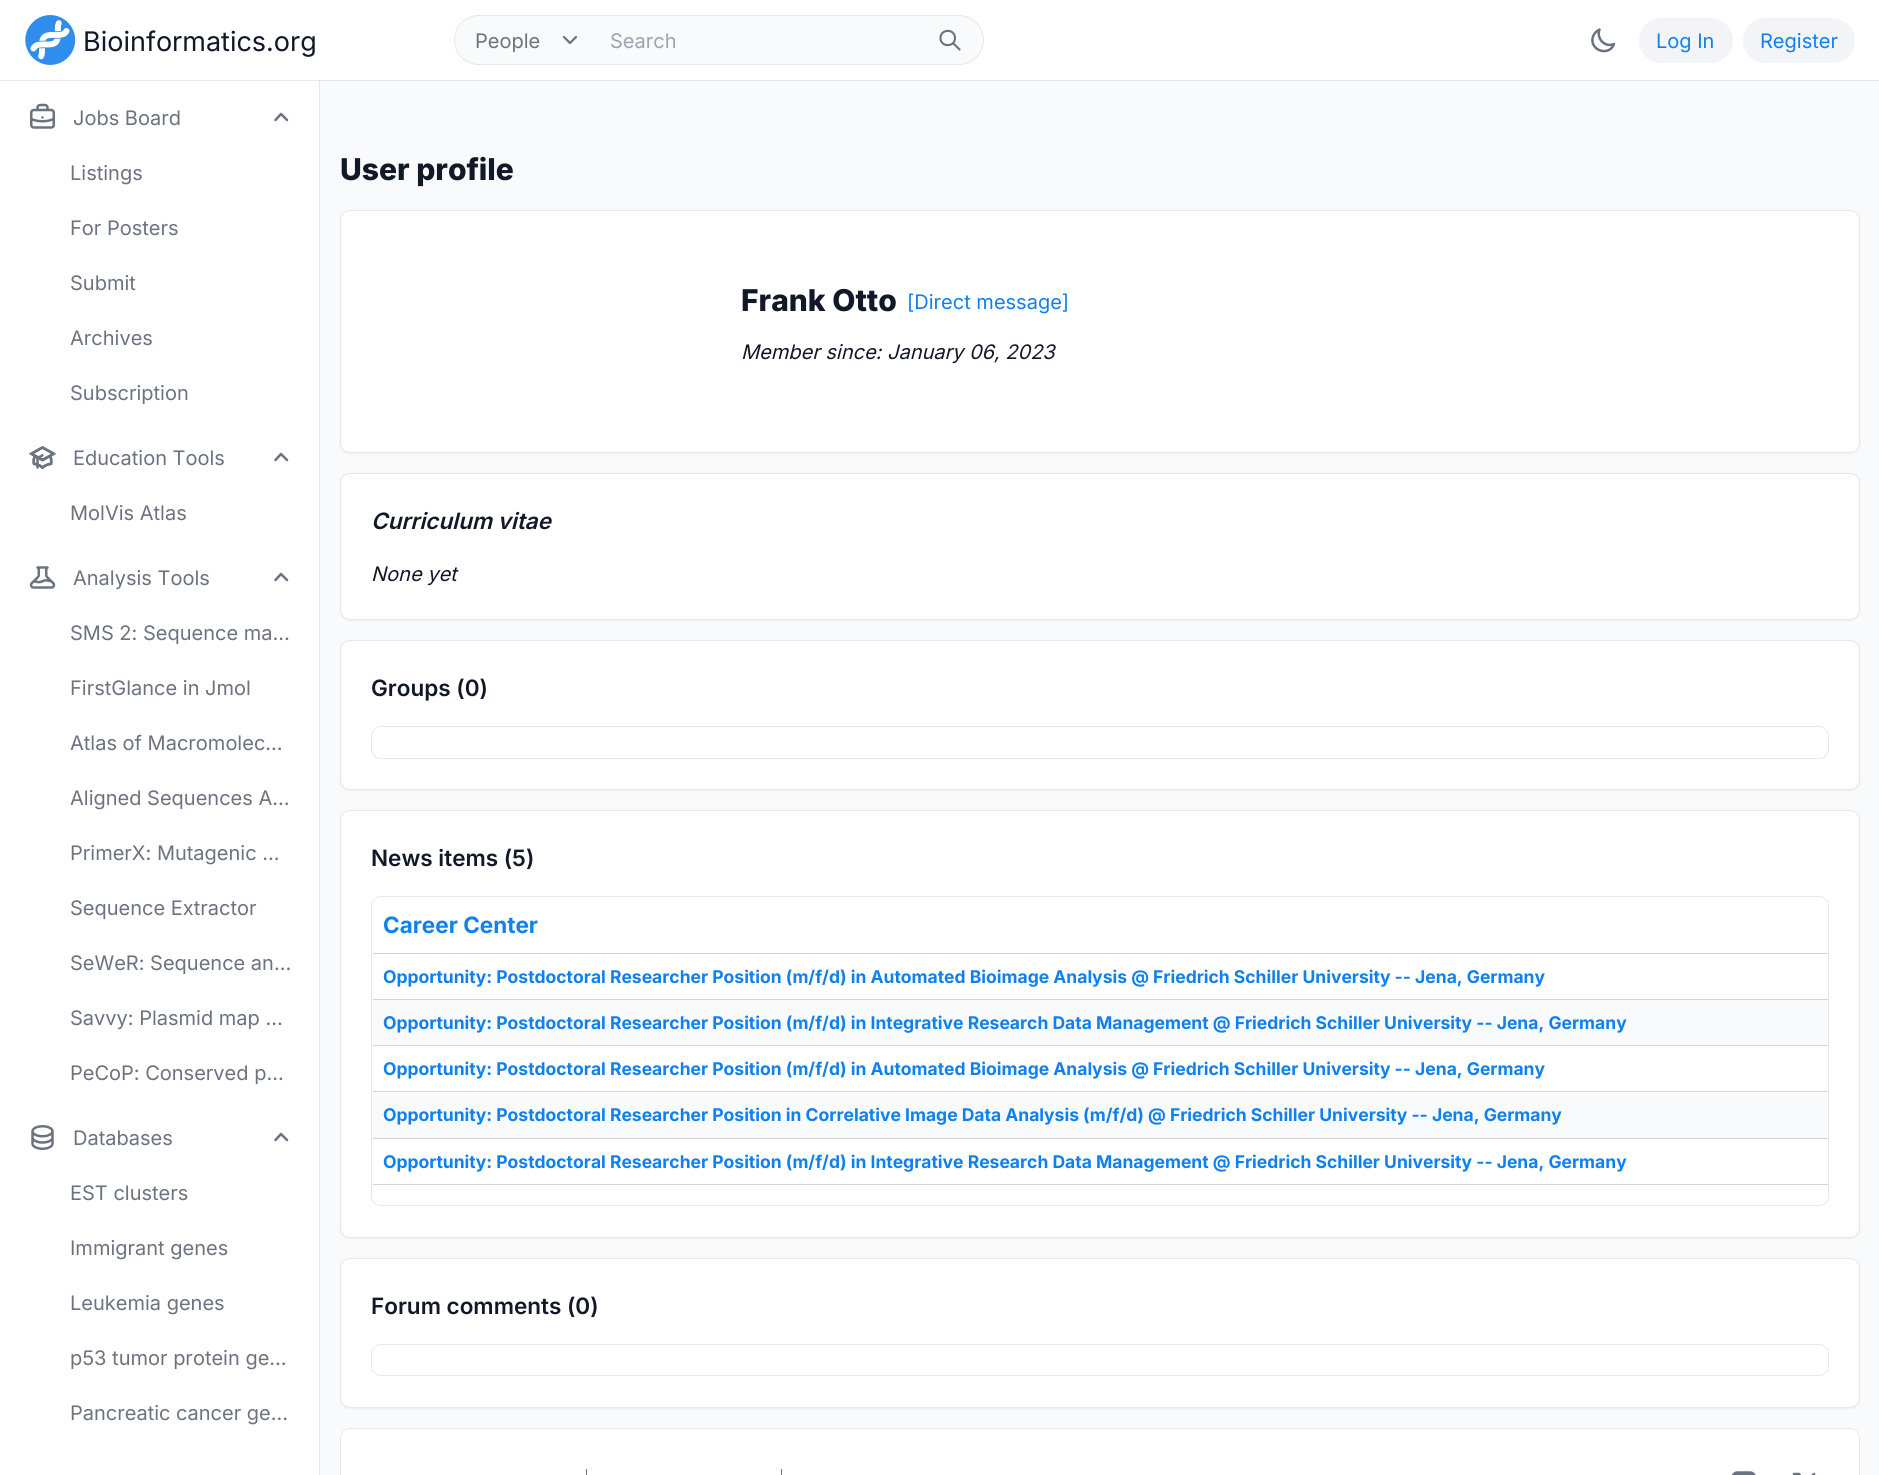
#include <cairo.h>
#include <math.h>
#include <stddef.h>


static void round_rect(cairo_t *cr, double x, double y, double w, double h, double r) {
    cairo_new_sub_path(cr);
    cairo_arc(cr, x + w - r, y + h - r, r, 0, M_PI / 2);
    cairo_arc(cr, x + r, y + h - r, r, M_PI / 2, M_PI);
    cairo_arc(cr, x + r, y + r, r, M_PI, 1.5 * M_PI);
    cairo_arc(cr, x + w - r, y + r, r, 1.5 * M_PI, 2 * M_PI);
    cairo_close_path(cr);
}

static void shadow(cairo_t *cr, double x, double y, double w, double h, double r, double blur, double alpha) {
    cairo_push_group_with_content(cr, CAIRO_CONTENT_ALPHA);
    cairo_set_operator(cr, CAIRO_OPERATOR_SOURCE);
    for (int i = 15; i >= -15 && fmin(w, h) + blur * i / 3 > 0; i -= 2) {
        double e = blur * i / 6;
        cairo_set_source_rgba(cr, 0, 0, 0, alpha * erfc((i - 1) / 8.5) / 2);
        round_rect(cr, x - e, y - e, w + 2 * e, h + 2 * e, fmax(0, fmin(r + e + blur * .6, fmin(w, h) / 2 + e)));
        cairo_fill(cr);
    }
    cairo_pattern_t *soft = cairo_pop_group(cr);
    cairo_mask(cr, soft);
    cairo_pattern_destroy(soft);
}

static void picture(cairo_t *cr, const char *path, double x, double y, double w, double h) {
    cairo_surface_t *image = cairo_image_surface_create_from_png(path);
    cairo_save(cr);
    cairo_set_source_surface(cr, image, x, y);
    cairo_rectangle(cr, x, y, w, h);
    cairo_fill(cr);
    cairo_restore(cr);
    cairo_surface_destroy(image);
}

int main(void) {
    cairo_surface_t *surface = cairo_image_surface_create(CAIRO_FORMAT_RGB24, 1879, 1475);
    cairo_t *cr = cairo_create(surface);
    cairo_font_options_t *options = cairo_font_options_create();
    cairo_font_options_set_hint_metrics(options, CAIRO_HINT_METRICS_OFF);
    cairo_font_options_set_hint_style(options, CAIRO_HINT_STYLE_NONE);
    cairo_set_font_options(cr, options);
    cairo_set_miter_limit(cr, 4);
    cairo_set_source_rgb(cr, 0.976, 0.98, 0.984);
    cairo_paint(cr);
    cairo_set_source_rgb(cr, 1, 1, 1);
    cairo_rectangle(cr, 0, 0, 1879, 80);
    cairo_fill(cr);
    cairo_set_source_rgb(cr, 0.898, 0.906, 0.922);
    cairo_rectangle(cr, 319, 80, 1, 1395);
    cairo_fill(cr);
    cairo_rectangle(cr, 0, 80, 1879, 1);
    cairo_fill(cr);
    picture(cr, "img1.png", 25, 15, 51, 50);
    cairo_select_font_face(cr, "Inter", CAIRO_FONT_SLANT_NORMAL, CAIRO_FONT_WEIGHT_NORMAL);
    cairo_set_font_size(cr, 27);
    cairo_set_source_rgb(cr, 0.067, 0.094, 0.153);
    cairo_move_to(cr, 83, 51);
    cairo_show_text(cr, "Bioinformatics.org");
    cairo_set_source_rgb(cr, 0.976, 0.98, 0.984);
    round_rect(cr, 454.5, 15.5, 529, 49, 24.5);
    cairo_fill_preserve(cr);
    cairo_set_source_rgb(cr, 0.898, 0.906, 0.922);
    cairo_set_line_width(cr, 1);
    cairo_stroke(cr);
    cairo_new_path(cr);
    cairo_move_to(cr, 564, 37);
    cairo_line_to(cr, 570, 43);
    cairo_line_to(cr, 576, 37);
    cairo_set_source_rgb(cr, 0.42, 0.447, 0.502);
    cairo_set_line_width(cr, 2.2);
    cairo_set_line_cap(cr, CAIRO_LINE_CAP_ROUND);
    cairo_set_line_join(cr, CAIRO_LINE_JOIN_ROUND);
    cairo_stroke(cr);
    cairo_set_font_size(cr, 20);
    cairo_move_to(cr, 475, 48);
    cairo_show_text(cr, "People");
    cairo_set_source_rgb(cr, 0.612, 0.639, 0.686);
    cairo_move_to(cr, 610, 48);
    cairo_show_text(cr, "Search");
    cairo_new_path(cr);
    cairo_move_to(cr, 959.5, 49.5);
    cairo_line_to(cr, 953, 43);
    cairo_move_to(cr, 955, 38);
    cairo_curve_to(cr, 955, 47.5, 940.5, 47.5, 940.5, 38);
    cairo_curve_to(cr, 940.5, 28.5, 955, 28.5, 955, 38);
    cairo_set_source_rgb(cr, 0.42, 0.447, 0.502);
    cairo_set_line_width(cr, 2.1);
    cairo_stroke(cr);
    cairo_new_path(cr);
    cairo_move_to(cr, 1614, 44);
    cairo_curve_to(cr, 1605, 48, 1596, 38.5, 1599.5, 29.5);
    cairo_curve_to(cr, 1596.5, 31, 1594, 33.5, 1593, 36.5);
    cairo_curve_to(cr, 1588.5, 50, 1609, 57.5, 1614, 44);
    cairo_set_line_width(cr, 2.5);
    cairo_stroke(cr);
    cairo_set_source_rgb(cr, 0.953, 0.957, 0.965);
    round_rect(cr, 1639, 18, 94, 45, 22.5);
    cairo_fill(cr);
    cairo_set_source_rgb(cr, 0.059, 0.502, 0.941);
    cairo_move_to(cr, 1656, 48);
    cairo_show_text(cr, "Log In");
    cairo_set_source_rgb(cr, 0.953, 0.957, 0.965);
    round_rect(cr, 1743, 18, 112, 45, 22.5);
    cairo_fill(cr);
    cairo_set_source_rgb(cr, 0.059, 0.502, 0.941);
    cairo_move_to(cr, 1760, 48);
    cairo_show_text(cr, "Register");
    cairo_set_source_rgb(cr, 1, 1, 1);
    cairo_rectangle(cr, 0, 81, 319, 1394);
    cairo_fill(cr);
    picture(cr, "img2.png", 30, 103, 25, 26);
    cairo_set_source_rgb(cr, 0.42, 0.447, 0.502);
    cairo_move_to(cr, 73, 125);
    cairo_show_text(cr, "Jobs Board");
    cairo_new_path(cr);
    cairo_move_to(cr, 275.5, 120);
    cairo_line_to(cr, 281, 114);
    cairo_line_to(cr, 287, 120);
    cairo_stroke(cr);
    cairo_move_to(cr, 70, 180);
    cairo_show_text(cr, "Listings");
    cairo_move_to(cr, 70, 235);
    cairo_show_text(cr, "For Posters");
    cairo_move_to(cr, 70, 290);
    cairo_show_text(cr, "Submit");
    cairo_move_to(cr, 70, 345);
    cairo_show_text(cr, "Archives");
    cairo_move_to(cr, 70, 400);
    cairo_show_text(cr, "Subscription");
    picture(cr, "img3.png", 28, 446, 29, 24);
    cairo_move_to(cr, 73, 465);
    cairo_show_text(cr, "Education Tools");
    cairo_new_path(cr);
    cairo_move_to(cr, 275.5, 460);
    cairo_line_to(cr, 281, 454);
    cairo_line_to(cr, 287, 460);
    cairo_stroke(cr);
    cairo_move_to(cr, 70, 520);
    cairo_show_text(cr, "MolVis Atlas");
    picture(cr, "img4.png", 29, 566, 27, 23);
    cairo_move_to(cr, 73, 585);
    cairo_show_text(cr, "Analysis Tools");
    cairo_new_path(cr);
    cairo_move_to(cr, 275.5, 580);
    cairo_line_to(cr, 281, 574);
    cairo_line_to(cr, 287, 580);
    cairo_stroke(cr);
    cairo_move_to(cr, 70, 640);
    cairo_show_text(cr, "SMS 2: Sequence ma…");
    cairo_move_to(cr, 70, 695);
    cairo_show_text(cr, "FirstGlance in Jmol");
    cairo_move_to(cr, 70, 750);
    cairo_show_text(cr, "Atlas of Macromolec…");
    cairo_move_to(cr, 70, 805);
    cairo_show_text(cr, "Aligned Sequences A…");
    cairo_move_to(cr, 70, 860);
    cairo_show_text(cr, "PrimerX: Mutagenic …");
    cairo_move_to(cr, 70, 915);
    cairo_show_text(cr, "Sequence Extractor");
    cairo_move_to(cr, 70, 970);
    cairo_show_text(cr, "SeWeR: Sequence an…");
    cairo_move_to(cr, 70, 1025);
    cairo_show_text(cr, "Savvy: Plasmid map …");
    cairo_move_to(cr, 70, 1080);
    cairo_show_text(cr, "PeCoP: Conserved p…");
    picture(cr, "img5.png", 31, 1125, 23, 25);
    cairo_move_to(cr, 73, 1145);
    cairo_show_text(cr, "Databases");
    cairo_new_path(cr);
    cairo_move_to(cr, 275.5, 1140);
    cairo_line_to(cr, 281, 1134);
    cairo_line_to(cr, 287, 1140);
    cairo_stroke(cr);
    cairo_move_to(cr, 70, 1200);
    cairo_show_text(cr, "EST clusters");
    cairo_move_to(cr, 70, 1255);
    cairo_show_text(cr, "Immigrant genes");
    cairo_move_to(cr, 70, 1310);
    cairo_show_text(cr, "Leukemia genes");
    cairo_move_to(cr, 70, 1365);
    cairo_show_text(cr, "p53 tumor protein ge…");
    cairo_move_to(cr, 70, 1420);
    cairo_show_text(cr, "Pancreatic cancer ge…");
    cairo_select_font_face(cr, "Inter ExtraBold", CAIRO_FONT_SLANT_NORMAL, CAIRO_FONT_WEIGHT_NORMAL);
    cairo_set_font_size(cr, 30);
    cairo_set_source_rgb(cr, 0.067, 0.094, 0.153);
    cairo_move_to(cr, 340, 180);
    cairo_show_text(cr, "User profile");
    cairo_set_source_rgb(cr, 0, 0, 0);
    shadow(cr, 340, 211, 1520, 243, 10, 1, 0.05);
    cairo_set_source_rgb(cr, 1, 1, 1);
    round_rect(cr, 340.5, 210.5, 1519, 242, 9.5);
    cairo_fill_preserve(cr);
    cairo_set_source_rgb(cr, 0.898, 0.906, 0.922);
    cairo_set_line_width(cr, 1);
    cairo_set_line_cap(cr, CAIRO_LINE_CAP_BUTT);
    cairo_set_line_join(cr, CAIRO_LINE_JOIN_MITER);
    cairo_stroke(cr);
    cairo_set_source_rgb(cr, 0.067, 0.094, 0.153);
    cairo_move_to(cr, 741, 311);
    cairo_show_text(cr, "Frank Otto");
    cairo_select_font_face(cr, "Inter", CAIRO_FONT_SLANT_NORMAL, CAIRO_FONT_WEIGHT_NORMAL);
    cairo_set_font_size(cr, 20);
    cairo_set_source_rgb(cr, 0.059, 0.502, 0.941);
    cairo_move_to(cr, 907, 309);
    cairo_show_text(cr, "[Direct message]");
    cairo_select_font_face(cr, "Inter", CAIRO_FONT_SLANT_ITALIC, CAIRO_FONT_WEIGHT_NORMAL);
    cairo_set_source_rgb(cr, 0.067, 0.094, 0.153);
    cairo_move_to(cr, 741, 359);
    cairo_show_text(cr, "Member since: January 06, 2023");
    cairo_set_source_rgb(cr, 0, 0, 0);
    shadow(cr, 340, 474, 1520, 147, 10, 1, 0.05);
    cairo_set_source_rgb(cr, 1, 1, 1);
    round_rect(cr, 340.5, 473.5, 1519, 146, 9.5);
    cairo_fill_preserve(cr);
    cairo_set_source_rgb(cr, 0.898, 0.906, 0.922);
    cairo_stroke(cr);
    cairo_select_font_face(cr, "Inter SemiBold", CAIRO_FONT_SLANT_ITALIC, CAIRO_FONT_WEIGHT_NORMAL);
    cairo_set_font_size(cr, 22.5);
    cairo_set_source_rgb(cr, 0.067, 0.094, 0.153);
    cairo_move_to(cr, 371, 529);
    cairo_show_text(cr, "Curriculum vitae");
    cairo_select_font_face(cr, "Inter", CAIRO_FONT_SLANT_ITALIC, CAIRO_FONT_WEIGHT_NORMAL);
    cairo_set_font_size(cr, 20);
    cairo_move_to(cr, 371, 581);
    cairo_show_text(cr, "None yet");
    cairo_set_source_rgb(cr, 0, 0, 0);
    shadow(cr, 340, 641, 1520, 150, 10, 1, 0.05);
    cairo_set_source_rgb(cr, 1, 1, 1);
    round_rect(cr, 340.5, 640.5, 1519, 149, 9.5);
    cairo_fill_preserve(cr);
    cairo_set_source_rgb(cr, 0.898, 0.906, 0.922);
    cairo_stroke(cr);
    cairo_select_font_face(cr, "Inter SemiBold", CAIRO_FONT_SLANT_NORMAL, CAIRO_FONT_WEIGHT_NORMAL);
    cairo_set_font_size(cr, 22.5);
    cairo_set_source_rgb(cr, 0.067, 0.094, 0.153);
    cairo_move_to(cr, 371, 696);
    cairo_show_text(cr, "Groups (0)");
    round_rect(cr, 371.5, 726.5, 1457, 32, 9.5);
    cairo_set_source_rgb(cr, 0.898, 0.906, 0.922);
    cairo_stroke(cr);
    cairo_set_source_rgb(cr, 0, 0, 0);
    shadow(cr, 340, 811, 1520, 428, 10, 1, 0.05);
    cairo_set_source_rgb(cr, 1, 1, 1);
    round_rect(cr, 340.5, 810.5, 1519, 427, 9.5);
    cairo_fill_preserve(cr);
    cairo_set_source_rgb(cr, 0.898, 0.906, 0.922);
    cairo_stroke(cr);
    cairo_set_source_rgb(cr, 0.067, 0.094, 0.153);
    cairo_move_to(cr, 371, 866);
    cairo_show_text(cr, "News items (5)");
    round_rect(cr, 371.5, 896.5, 1457, 309, 9.5);
    cairo_set_source_rgb(cr, 0.898, 0.906, 0.922);
    cairo_stroke(cr);
    cairo_set_source_rgb(cr, 1, 1, 1);
    round_rect(cr, 373, 898, 1455, 307, 10);
    cairo_fill(cr);
    cairo_set_source_rgb(cr, 0.82, 0.835, 0.859);
    cairo_rectangle(cr, 373, 953, 1455, 1);
    cairo_fill(cr);
    cairo_select_font_face(cr, "Inter", CAIRO_FONT_SLANT_NORMAL, CAIRO_FONT_WEIGHT_BOLD);
    cairo_set_source_rgb(cr, 0.059, 0.502, 0.941);
    cairo_move_to(cr, 383, 933);
    cairo_show_text(cr, "Career Center");
    cairo_set_source_rgb(cr, 0.82, 0.835, 0.859);
    cairo_rectangle(cr, 373, 999, 1455, 1);
    cairo_fill(cr);
    cairo_set_font_size(cr, 17.5);
    cairo_set_source_rgb(cr, 0.059, 0.502, 0.941);
    cairo_move_to(cr, 383, 983);
    cairo_show_text(cr, "Opportunity: Postdoctoral Researcher Position (m/f/d) in Automated Bioimage Analysis @ Friedrich Schiller University -- Jena, Germany");
    cairo_set_source_rgb(cr, 0.976, 0.98, 0.984);
    cairo_rectangle(cr, 373, 1000, 1455, 45);
    cairo_fill(cr);
    cairo_set_source_rgb(cr, 0.82, 0.835, 0.859);
    cairo_rectangle(cr, 373, 1045, 1455, 1);
    cairo_fill(cr);
    cairo_set_source_rgb(cr, 0.059, 0.502, 0.941);
    cairo_move_to(cr, 383, 1029);
    cairo_show_text(cr, "Opportunity: Postdoctoral Researcher Position (m/f/d) in Integrative Research Data Management @ Friedrich Schiller University -- Jena, Germany");
    cairo_set_source_rgb(cr, 0.82, 0.835, 0.859);
    cairo_rectangle(cr, 373, 1091, 1455, 1);
    cairo_fill(cr);
    cairo_set_source_rgb(cr, 0.059, 0.502, 0.941);
    cairo_move_to(cr, 383, 1075);
    cairo_show_text(cr, "Opportunity: Postdoctoral Researcher Position (m/f/d) in Automated Bioimage Analysis @ Friedrich Schiller University -- Jena, Germany");
    cairo_set_source_rgb(cr, 0.976, 0.98, 0.984);
    cairo_rectangle(cr, 373, 1093, 1455, 45);
    cairo_fill(cr);
    cairo_set_source_rgb(cr, 0.82, 0.835, 0.859);
    cairo_rectangle(cr, 373, 1138, 1455, 1);
    cairo_fill(cr);
    cairo_set_source_rgb(cr, 0.059, 0.502, 0.941);
    cairo_move_to(cr, 383, 1121);
    cairo_show_text(cr, "Opportunity: Postdoctoral Researcher Position in Correlative Image Data Analysis (m/f/d) @ Friedrich Schiller University -- Jena, Germany");
    cairo_set_source_rgb(cr, 0.82, 0.835, 0.859);
    cairo_rectangle(cr, 373, 1184, 1455, 1);
    cairo_fill(cr);
    cairo_set_source_rgb(cr, 0.059, 0.502, 0.941);
    cairo_move_to(cr, 383, 1168);
    cairo_show_text(cr, "Opportunity: Postdoctoral Researcher Position (m/f/d) in Integrative Research Data Management @ Friedrich Schiller University -- Jena, Germany");
    cairo_set_source_rgb(cr, 0, 0, 0);
    shadow(cr, 340, 1259, 1520, 150, 10, 1, 0.05);
    cairo_set_source_rgb(cr, 1, 1, 1);
    round_rect(cr, 340.5, 1258.5, 1519, 149, 9.5);
    cairo_fill_preserve(cr);
    cairo_set_source_rgb(cr, 0.898, 0.906, 0.922);
    cairo_stroke(cr);
    cairo_select_font_face(cr, "Inter SemiBold", CAIRO_FONT_SLANT_NORMAL, CAIRO_FONT_WEIGHT_NORMAL);
    cairo_set_font_size(cr, 22.5);
    cairo_set_source_rgb(cr, 0.067, 0.094, 0.153);
    cairo_move_to(cr, 371, 1314);
    cairo_show_text(cr, "Forum comments (0)");
    round_rect(cr, 371.5, 1344.5, 1457, 31, 9.5);
    cairo_set_source_rgb(cr, 0.898, 0.906, 0.922);
    cairo_stroke(cr);
    cairo_set_source_rgb(cr, 1, 1, 1);
    cairo_new_path(cr);
    cairo_move_to(cr, 350, 1428);
    cairo_line_to(cr, 1850, 1428);
    cairo_curve_to(cr, 1855.5, 1428, 1860, 1432.5, 1860, 1438);
    cairo_line_to(cr, 1860, 1475);
    cairo_line_to(cr, 340, 1475);
    cairo_line_to(cr, 340, 1438);
    cairo_curve_to(cr, 340, 1432.5, 344.5, 1428, 350, 1428);
    cairo_close_path(cr);
    cairo_fill(cr);
    round_rect(cr, 340.5, 1428.5, 1519, 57, 9.5);
    cairo_set_source_rgb(cr, 0.898, 0.906, 0.922);
    cairo_stroke(cr);
    cairo_set_source_rgb(cr, 0.42, 0.447, 0.502);
    cairo_rectangle(cr, 586, 1469, 1, 6);
    cairo_fill(cr);
    cairo_rectangle(cr, 781, 1469, 1, 6);
    cairo_fill(cr);
    picture(cr, "img6.png", 1731, 1471, 25, 4);
    cairo_new_path(cr);
    cairo_move_to(cr, 1794, 1474);
    cairo_line_to(cr, 1808.5, 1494);
    cairo_line_to(cr, 1814, 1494);
    cairo_line_to(cr, 1799, 1474);
    cairo_close_path(cr);
    cairo_move_to(cr, 1794, 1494);
    cairo_line_to(cr, 1802, 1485.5);
    cairo_move_to(cr, 1805.5, 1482);
    cairo_line_to(cr, 1814, 1474);
    cairo_set_line_width(cr, 2.5);
    cairo_set_line_cap(cr, CAIRO_LINE_CAP_ROUND);
    cairo_set_line_join(cr, CAIRO_LINE_JOIN_ROUND);
    cairo_stroke(cr);
    cairo_surface_write_to_png(surface, "page.png");
    cairo_font_options_destroy(options);
    cairo_destroy(cr);
    cairo_surface_destroy(surface);
    return 0;
}
